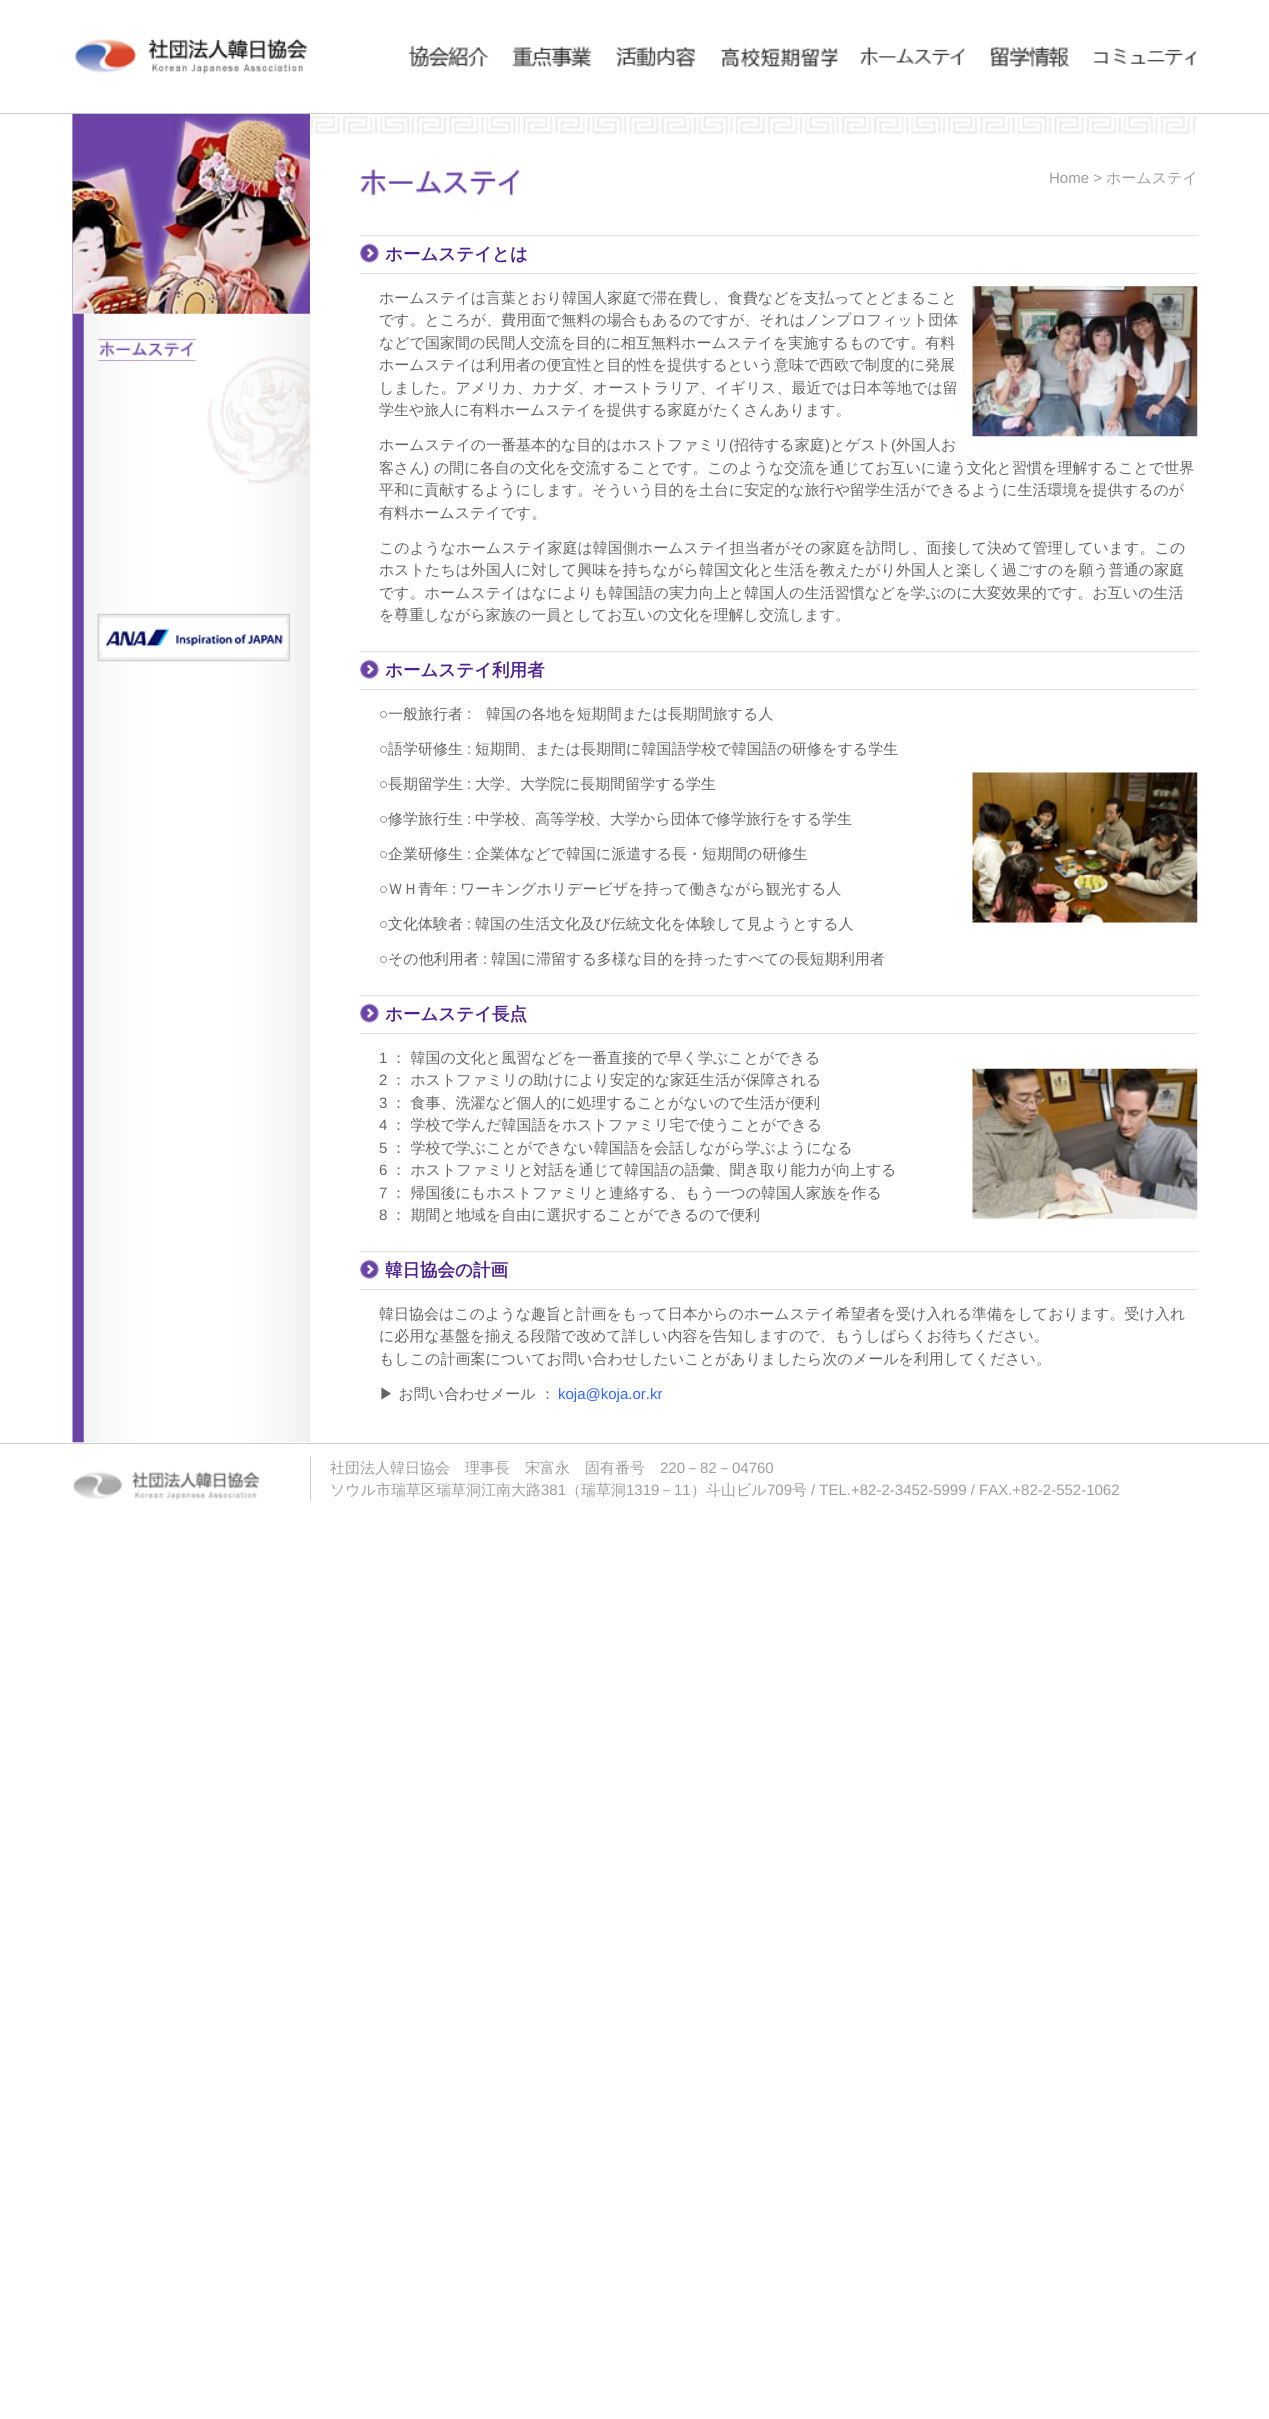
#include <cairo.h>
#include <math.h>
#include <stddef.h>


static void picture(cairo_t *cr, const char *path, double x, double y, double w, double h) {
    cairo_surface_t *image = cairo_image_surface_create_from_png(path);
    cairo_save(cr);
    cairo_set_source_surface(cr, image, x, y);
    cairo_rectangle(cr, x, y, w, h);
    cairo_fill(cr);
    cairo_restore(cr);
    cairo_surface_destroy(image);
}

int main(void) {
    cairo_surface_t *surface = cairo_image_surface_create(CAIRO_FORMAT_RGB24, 1269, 2419);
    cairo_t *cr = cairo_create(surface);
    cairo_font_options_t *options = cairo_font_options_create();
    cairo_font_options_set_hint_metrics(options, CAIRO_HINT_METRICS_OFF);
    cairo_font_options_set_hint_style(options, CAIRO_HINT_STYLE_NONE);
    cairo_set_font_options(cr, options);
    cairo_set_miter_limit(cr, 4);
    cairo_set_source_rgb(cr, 1, 1, 1);
    cairo_paint(cr);
    cairo_set_source_rgb(cr, 0.804, 0.804, 0.804);
    cairo_rectangle(cr, 0, 113, 1269, 1);
    cairo_fill(cr);
    picture(cr, "img1.png", 74, 38, 234, 36);
    picture(cr, "img2.png", 408, 46, 81, 22);
    picture(cr, "img3.png", 512, 46, 80, 22);
    picture(cr, "img4.png", 616, 46, 80, 22);
    picture(cr, "img5.png", 721, 47, 117, 21);
    picture(cr, "img6.png", 860, 47, 106, 19);
    picture(cr, "img7.png", 990, 46, 79, 22);
    picture(cr, "img8.png", 1093, 48, 104, 18);
    picture(cr, "img9.png", 72, 113, 238, 1330);
    picture(cr, "img10.png", 72, 113, 238, 201);
    picture(cr, "img11.png", 207, 356, 103, 128);
    picture(cr, "img12.png", 97, 338, 100, 24);
    picture(cr, "img13.png", 97, 613, 193, 49);
    picture(cr, "img14.png", 311, 116, 887, 18);
    picture(cr, "img15.png", 360, 168, 160, 28);
    cairo_select_font_face(cr, "Liberation Sans", CAIRO_FONT_SLANT_NORMAL, CAIRO_FONT_WEIGHT_NORMAL);
    cairo_set_font_size(cr, 15);
    cairo_set_source_rgb(cr, 0.616, 0.616, 0.616);
    cairo_move_to(cr, 1049, 183);
    cairo_show_text(cr, "Home >");
    cairo_select_font_face(cr, "WenQuanYi Zen Hei Medium", CAIRO_FONT_SLANT_NORMAL, CAIRO_FONT_WEIGHT_NORMAL);
    cairo_move_to(cr, 1106, 183);
    cairo_show_text(cr, "ホームステイ");
    picture(cr, "img16.png", 360, 243, 19, 20);
    cairo_set_source_rgb(cr, 0.886, 0.886, 0.886);
    cairo_rectangle(cr, 360, 235, 838, 1);
    cairo_fill(cr);
    cairo_rectangle(cr, 360, 273, 838, 1);
    cairo_fill(cr);
    cairo_select_font_face(cr, "WenQuanYi Zen Hei", CAIRO_FONT_SLANT_NORMAL, CAIRO_FONT_WEIGHT_BOLD);
    cairo_set_font_size(cr, 17.5);
    cairo_set_source_rgb(cr, 0.31, 0.141, 0.561);
    cairo_move_to(cr, 385, 260);
    cairo_show_text(cr, "ホームステイとは");
    cairo_select_font_face(cr, "WenQuanYi Zen Hei Medium", CAIRO_FONT_SLANT_NORMAL, CAIRO_FONT_WEIGHT_NORMAL);
    cairo_set_font_size(cr, 15);
    cairo_set_source_rgb(cr, 0.392, 0.392, 0.392);
    cairo_move_to(cr, 379, 303);
    cairo_show_text(cr, "ホームステイは言葉とおり韓国人家庭で滞在費し、食費などを支払ってとどまること");
    picture(cr, "img17.png", 972, 286, 226, 151);
    cairo_move_to(cr, 379, 325);
    cairo_show_text(cr, "です。ところが、費用面で無料の場合もあるのですが、それはノンプロフィット団体");
    cairo_move_to(cr, 379, 348);
    cairo_show_text(cr, "などで国家間の民間人交流を目的に相互無料ホームステイを実施するものです。有料");
    cairo_move_to(cr, 379, 370);
    cairo_show_text(cr, "ホームステイは利用者の便宜性と目的性を提供するという意味で西欧で制度的に発展");
    cairo_move_to(cr, 379, 393);
    cairo_show_text(cr, "しました。アメリカ、カナダ、オーストラリア、イギリス、最近では日本等地では留");
    cairo_move_to(cr, 379, 415);
    cairo_show_text(cr, "学生や旅人に有料ホームステイを提供する家庭がたくさんあります。");
    cairo_move_to(cr, 379, 450);
    cairo_show_text(cr, "ホームステイの一番基本的な目的はホストファミリ");
    cairo_select_font_face(cr, "Liberation Sans", CAIRO_FONT_SLANT_NORMAL, CAIRO_FONT_WEIGHT_NORMAL);
    cairo_move_to(cr, 729, 450);
    cairo_show_text(cr, "(");
    cairo_select_font_face(cr, "WenQuanYi Zen Hei Medium", CAIRO_FONT_SLANT_NORMAL, CAIRO_FONT_WEIGHT_NORMAL);
    cairo_move_to(cr, 734, 450);
    cairo_show_text(cr, "招待する家庭");
    cairo_select_font_face(cr, "Liberation Sans", CAIRO_FONT_SLANT_NORMAL, CAIRO_FONT_WEIGHT_NORMAL);
    cairo_move_to(cr, 825, 450);
    cairo_show_text(cr, ")");
    cairo_select_font_face(cr, "WenQuanYi Zen Hei Medium", CAIRO_FONT_SLANT_NORMAL, CAIRO_FONT_WEIGHT_NORMAL);
    cairo_move_to(cr, 830, 450);
    cairo_show_text(cr, "とゲスト");
    cairo_select_font_face(cr, "Liberation Sans", CAIRO_FONT_SLANT_NORMAL, CAIRO_FONT_WEIGHT_NORMAL);
    cairo_move_to(cr, 891, 450);
    cairo_show_text(cr, "(");
    cairo_select_font_face(cr, "WenQuanYi Zen Hei Medium", CAIRO_FONT_SLANT_NORMAL, CAIRO_FONT_WEIGHT_NORMAL);
    cairo_move_to(cr, 896, 450);
    cairo_show_text(cr, "外国人お");
    cairo_move_to(cr, 379, 473);
    cairo_show_text(cr, "客さん");
    cairo_select_font_face(cr, "Liberation Sans", CAIRO_FONT_SLANT_NORMAL, CAIRO_FONT_WEIGHT_NORMAL);
    cairo_move_to(cr, 424, 473);
    cairo_show_text(cr, ")");
    cairo_select_font_face(cr, "WenQuanYi Zen Hei Medium", CAIRO_FONT_SLANT_NORMAL, CAIRO_FONT_WEIGHT_NORMAL);
    cairo_move_to(cr, 434, 473);
    cairo_show_text(cr, "の間に各自の文化を交流することです。このような交流を通じてお互いに違う文化と習慣を理解することで世界");
    cairo_move_to(cr, 379, 495);
    cairo_show_text(cr, "平和に貢献するようにします。そういう目的を土台に安定的な旅行や留学生活ができるように生活環境を提供するのが");
    cairo_move_to(cr, 379, 518);
    cairo_show_text(cr, "有料ホームステイです。");
    cairo_move_to(cr, 379, 553);
    cairo_show_text(cr, "このようなホームステイ家庭は韓国側ホームステイ担当者がその家庭を訪問し、面接して決めて管理しています。この");
    cairo_move_to(cr, 379, 575);
    cairo_show_text(cr, "ホストたちは外国人に対して興味を持ちながら韓国文化と生活を教えたがり外国人と楽しく過ごすのを願う普通の家庭");
    cairo_move_to(cr, 379, 598);
    cairo_show_text(cr, "です。ホームステイはなによりも韓国語の実力向上と韓国人の生活習慣などを学ぶのに大変效果的です。お互いの生活");
    cairo_move_to(cr, 379, 620);
    cairo_show_text(cr, "を尊重しながら家族の一員としてお互いの文化を理解し交流します。");
    picture(cr, "img18.png", 360, 660, 19, 19);
    cairo_set_source_rgb(cr, 0.886, 0.886, 0.886);
    cairo_rectangle(cr, 360, 651, 838, 1);
    cairo_fill(cr);
    cairo_rectangle(cr, 360, 689, 838, 1);
    cairo_fill(cr);
    cairo_select_font_face(cr, "WenQuanYi Zen Hei", CAIRO_FONT_SLANT_NORMAL, CAIRO_FONT_WEIGHT_BOLD);
    cairo_set_font_size(cr, 17.5);
    cairo_set_source_rgb(cr, 0.31, 0.141, 0.561);
    cairo_move_to(cr, 385, 676);
    cairo_show_text(cr, "ホームステイ利用者");
    cairo_select_font_face(cr, "Liberation Sans", CAIRO_FONT_SLANT_NORMAL, CAIRO_FONT_WEIGHT_NORMAL);
    cairo_set_font_size(cr, 15);
    cairo_set_source_rgb(cr, 0.392, 0.392, 0.392);
    cairo_move_to(cr, 379, 719);
    cairo_show_text(cr, "○");
    cairo_select_font_face(cr, "WenQuanYi Zen Hei Medium", CAIRO_FONT_SLANT_NORMAL, CAIRO_FONT_WEIGHT_NORMAL);
    cairo_move_to(cr, 388, 719);
    cairo_show_text(cr, "一般旅行者");
    cairo_select_font_face(cr, "Liberation Sans", CAIRO_FONT_SLANT_NORMAL, CAIRO_FONT_WEIGHT_NORMAL);
    cairo_move_to(cr, 467, 719);
    cairo_show_text(cr, ":");
    cairo_select_font_face(cr, "WenQuanYi Zen Hei Medium", CAIRO_FONT_SLANT_NORMAL, CAIRO_FONT_WEIGHT_NORMAL);
    cairo_move_to(cr, 486, 719);
    cairo_show_text(cr, "韓国の各地を短期間または長期間旅する人");
    cairo_select_font_face(cr, "Liberation Sans", CAIRO_FONT_SLANT_NORMAL, CAIRO_FONT_WEIGHT_NORMAL);
    cairo_move_to(cr, 379, 754);
    cairo_show_text(cr, "○");
    cairo_select_font_face(cr, "WenQuanYi Zen Hei Medium", CAIRO_FONT_SLANT_NORMAL, CAIRO_FONT_WEIGHT_NORMAL);
    cairo_move_to(cr, 388, 754);
    cairo_show_text(cr, "語学研修生");
    cairo_select_font_face(cr, "Liberation Sans", CAIRO_FONT_SLANT_NORMAL, CAIRO_FONT_WEIGHT_NORMAL);
    cairo_move_to(cr, 467, 754);
    cairo_show_text(cr, ":");
    cairo_select_font_face(cr, "WenQuanYi Zen Hei Medium", CAIRO_FONT_SLANT_NORMAL, CAIRO_FONT_WEIGHT_NORMAL);
    cairo_move_to(cr, 475, 754);
    cairo_show_text(cr, "短期間、または長期間に韓国語学校で韓国語の研修をする学生");
    cairo_select_font_face(cr, "Liberation Sans", CAIRO_FONT_SLANT_NORMAL, CAIRO_FONT_WEIGHT_NORMAL);
    cairo_move_to(cr, 379, 789);
    cairo_show_text(cr, "○");
    cairo_select_font_face(cr, "WenQuanYi Zen Hei Medium", CAIRO_FONT_SLANT_NORMAL, CAIRO_FONT_WEIGHT_NORMAL);
    cairo_move_to(cr, 388, 789);
    cairo_show_text(cr, "長期留学生");
    cairo_select_font_face(cr, "Liberation Sans", CAIRO_FONT_SLANT_NORMAL, CAIRO_FONT_WEIGHT_NORMAL);
    cairo_move_to(cr, 467, 789);
    cairo_show_text(cr, ":");
    cairo_select_font_face(cr, "WenQuanYi Zen Hei Medium", CAIRO_FONT_SLANT_NORMAL, CAIRO_FONT_WEIGHT_NORMAL);
    cairo_move_to(cr, 475, 789);
    cairo_show_text(cr, "大学、大学院に長期間留学する学生");
    picture(cr, "img19.png", 972, 772, 226, 151);
    cairo_select_font_face(cr, "Liberation Sans", CAIRO_FONT_SLANT_NORMAL, CAIRO_FONT_WEIGHT_NORMAL);
    cairo_move_to(cr, 379, 824);
    cairo_show_text(cr, "○");
    cairo_select_font_face(cr, "WenQuanYi Zen Hei Medium", CAIRO_FONT_SLANT_NORMAL, CAIRO_FONT_WEIGHT_NORMAL);
    cairo_move_to(cr, 388, 824);
    cairo_show_text(cr, "修学旅行生");
    cairo_select_font_face(cr, "Liberation Sans", CAIRO_FONT_SLANT_NORMAL, CAIRO_FONT_WEIGHT_NORMAL);
    cairo_move_to(cr, 467, 824);
    cairo_show_text(cr, ":");
    cairo_select_font_face(cr, "WenQuanYi Zen Hei Medium", CAIRO_FONT_SLANT_NORMAL, CAIRO_FONT_WEIGHT_NORMAL);
    cairo_move_to(cr, 475, 824);
    cairo_show_text(cr, "中学校、高等学校、大学から団体で修学旅行をする学生");
    cairo_select_font_face(cr, "Liberation Sans", CAIRO_FONT_SLANT_NORMAL, CAIRO_FONT_WEIGHT_NORMAL);
    cairo_move_to(cr, 379, 859);
    cairo_show_text(cr, "○");
    cairo_select_font_face(cr, "WenQuanYi Zen Hei Medium", CAIRO_FONT_SLANT_NORMAL, CAIRO_FONT_WEIGHT_NORMAL);
    cairo_move_to(cr, 388, 859);
    cairo_show_text(cr, "企業研修生");
    cairo_select_font_face(cr, "Liberation Sans", CAIRO_FONT_SLANT_NORMAL, CAIRO_FONT_WEIGHT_NORMAL);
    cairo_move_to(cr, 467, 859);
    cairo_show_text(cr, ":");
    cairo_select_font_face(cr, "WenQuanYi Zen Hei Medium", CAIRO_FONT_SLANT_NORMAL, CAIRO_FONT_WEIGHT_NORMAL);
    cairo_move_to(cr, 475, 859);
    cairo_show_text(cr, "企業体などで韓国に派遣する長・短期間の研修生");
    cairo_select_font_face(cr, "Liberation Sans", CAIRO_FONT_SLANT_NORMAL, CAIRO_FONT_WEIGHT_NORMAL);
    cairo_move_to(cr, 379, 894);
    cairo_show_text(cr, "○");
    cairo_select_font_face(cr, "WenQuanYi Zen Hei Medium", CAIRO_FONT_SLANT_NORMAL, CAIRO_FONT_WEIGHT_NORMAL);
    cairo_move_to(cr, 388, 894);
    cairo_show_text(cr, "ＷＨ青年");
    cairo_select_font_face(cr, "Liberation Sans", CAIRO_FONT_SLANT_NORMAL, CAIRO_FONT_WEIGHT_NORMAL);
    cairo_move_to(cr, 452, 894);
    cairo_show_text(cr, ":");
    cairo_select_font_face(cr, "WenQuanYi Zen Hei Medium", CAIRO_FONT_SLANT_NORMAL, CAIRO_FONT_WEIGHT_NORMAL);
    cairo_move_to(cr, 460, 894);
    cairo_show_text(cr, "ワーキングホリデービザを持って働きながら観光する人");
    cairo_select_font_face(cr, "Liberation Sans", CAIRO_FONT_SLANT_NORMAL, CAIRO_FONT_WEIGHT_NORMAL);
    cairo_move_to(cr, 379, 929);
    cairo_show_text(cr, "○");
    cairo_select_font_face(cr, "WenQuanYi Zen Hei Medium", CAIRO_FONT_SLANT_NORMAL, CAIRO_FONT_WEIGHT_NORMAL);
    cairo_move_to(cr, 388, 929);
    cairo_show_text(cr, "文化体験者");
    cairo_select_font_face(cr, "Liberation Sans", CAIRO_FONT_SLANT_NORMAL, CAIRO_FONT_WEIGHT_NORMAL);
    cairo_move_to(cr, 467, 929);
    cairo_show_text(cr, ":");
    cairo_select_font_face(cr, "WenQuanYi Zen Hei Medium", CAIRO_FONT_SLANT_NORMAL, CAIRO_FONT_WEIGHT_NORMAL);
    cairo_move_to(cr, 475, 929);
    cairo_show_text(cr, "韓国の生活文化及び伝統文化を体験して見ようとする人");
    cairo_select_font_face(cr, "Liberation Sans", CAIRO_FONT_SLANT_NORMAL, CAIRO_FONT_WEIGHT_NORMAL);
    cairo_move_to(cr, 379, 964);
    cairo_show_text(cr, "○");
    cairo_select_font_face(cr, "WenQuanYi Zen Hei Medium", CAIRO_FONT_SLANT_NORMAL, CAIRO_FONT_WEIGHT_NORMAL);
    cairo_move_to(cr, 388, 964);
    cairo_show_text(cr, "その他利用者");
    cairo_select_font_face(cr, "Liberation Sans", CAIRO_FONT_SLANT_NORMAL, CAIRO_FONT_WEIGHT_NORMAL);
    cairo_move_to(cr, 483, 964);
    cairo_show_text(cr, ":");
    cairo_select_font_face(cr, "WenQuanYi Zen Hei Medium", CAIRO_FONT_SLANT_NORMAL, CAIRO_FONT_WEIGHT_NORMAL);
    cairo_move_to(cr, 491, 964);
    cairo_show_text(cr, "韓国に滞留する多様な目的を持ったすべての長短期利用者");
    picture(cr, "img16.png", 360, 1003, 19, 20);
    cairo_set_source_rgb(cr, 0.886, 0.886, 0.886);
    cairo_rectangle(cr, 360, 995, 838, 1);
    cairo_fill(cr);
    cairo_rectangle(cr, 360, 1033, 838, 1);
    cairo_fill(cr);
    cairo_select_font_face(cr, "WenQuanYi Zen Hei", CAIRO_FONT_SLANT_NORMAL, CAIRO_FONT_WEIGHT_BOLD);
    cairo_set_font_size(cr, 17.5);
    cairo_set_source_rgb(cr, 0.31, 0.141, 0.561);
    cairo_move_to(cr, 385, 1020);
    cairo_show_text(cr, "ホームステイ長点");
    cairo_select_font_face(cr, "Liberation Sans", CAIRO_FONT_SLANT_NORMAL, CAIRO_FONT_WEIGHT_NORMAL);
    cairo_set_font_size(cr, 15);
    cairo_set_source_rgb(cr, 0.392, 0.392, 0.392);
    cairo_move_to(cr, 379, 1063);
    cairo_show_text(cr, "1");
    cairo_select_font_face(cr, "WenQuanYi Zen Hei Medium", CAIRO_FONT_SLANT_NORMAL, CAIRO_FONT_WEIGHT_NORMAL);
    cairo_move_to(cr, 391, 1063);
    cairo_show_text(cr, "： 韓国の文化と風習などを一番直接的で早く学ぶことができる");
    cairo_select_font_face(cr, "Liberation Sans", CAIRO_FONT_SLANT_NORMAL, CAIRO_FONT_WEIGHT_NORMAL);
    cairo_move_to(cr, 379, 1085);
    cairo_show_text(cr, "2");
    cairo_select_font_face(cr, "WenQuanYi Zen Hei Medium", CAIRO_FONT_SLANT_NORMAL, CAIRO_FONT_WEIGHT_NORMAL);
    cairo_move_to(cr, 391, 1085);
    cairo_show_text(cr, "： ホストファミリの助けにより安定的な家廷生活が保障される");
    picture(cr, "img20.png", 972, 1068, 226, 151);
    cairo_select_font_face(cr, "Liberation Sans", CAIRO_FONT_SLANT_NORMAL, CAIRO_FONT_WEIGHT_NORMAL);
    cairo_move_to(cr, 379, 1108);
    cairo_show_text(cr, "3");
    cairo_select_font_face(cr, "WenQuanYi Zen Hei Medium", CAIRO_FONT_SLANT_NORMAL, CAIRO_FONT_WEIGHT_NORMAL);
    cairo_move_to(cr, 391, 1108);
    cairo_show_text(cr, "： 食事、洗濯など個人的に処理することがないので生活が便利");
    cairo_select_font_face(cr, "Liberation Sans", CAIRO_FONT_SLANT_NORMAL, CAIRO_FONT_WEIGHT_NORMAL);
    cairo_move_to(cr, 379, 1130);
    cairo_show_text(cr, "4");
    cairo_select_font_face(cr, "WenQuanYi Zen Hei Medium", CAIRO_FONT_SLANT_NORMAL, CAIRO_FONT_WEIGHT_NORMAL);
    cairo_move_to(cr, 391, 1130);
    cairo_show_text(cr, "： 学校で学んだ韓国語をホストファミリ宅で使うことができる");
    cairo_select_font_face(cr, "Liberation Sans", CAIRO_FONT_SLANT_NORMAL, CAIRO_FONT_WEIGHT_NORMAL);
    cairo_move_to(cr, 379, 1153);
    cairo_show_text(cr, "5");
    cairo_select_font_face(cr, "WenQuanYi Zen Hei Medium", CAIRO_FONT_SLANT_NORMAL, CAIRO_FONT_WEIGHT_NORMAL);
    cairo_move_to(cr, 391, 1153);
    cairo_show_text(cr, "： 学校で学ぶことができない韓国語を会話しながら学ぶようになる");
    cairo_select_font_face(cr, "Liberation Sans", CAIRO_FONT_SLANT_NORMAL, CAIRO_FONT_WEIGHT_NORMAL);
    cairo_move_to(cr, 379, 1175);
    cairo_show_text(cr, "6");
    cairo_select_font_face(cr, "WenQuanYi Zen Hei Medium", CAIRO_FONT_SLANT_NORMAL, CAIRO_FONT_WEIGHT_NORMAL);
    cairo_move_to(cr, 391, 1175);
    cairo_show_text(cr, "： ホストファミリと対話を通じて韓国語の語彙、聞き取り能力が向上する");
    cairo_select_font_face(cr, "Liberation Sans", CAIRO_FONT_SLANT_NORMAL, CAIRO_FONT_WEIGHT_NORMAL);
    cairo_move_to(cr, 379, 1198);
    cairo_show_text(cr, "7");
    cairo_select_font_face(cr, "WenQuanYi Zen Hei Medium", CAIRO_FONT_SLANT_NORMAL, CAIRO_FONT_WEIGHT_NORMAL);
    cairo_move_to(cr, 391, 1198);
    cairo_show_text(cr, "： 帰国後にもホストファミリと連絡する、もう一つの韓国人家族を作る");
    cairo_select_font_face(cr, "Liberation Sans", CAIRO_FONT_SLANT_NORMAL, CAIRO_FONT_WEIGHT_NORMAL);
    cairo_move_to(cr, 379, 1220);
    cairo_show_text(cr, "8");
    cairo_select_font_face(cr, "WenQuanYi Zen Hei Medium", CAIRO_FONT_SLANT_NORMAL, CAIRO_FONT_WEIGHT_NORMAL);
    cairo_move_to(cr, 391, 1220);
    cairo_show_text(cr, "： 期間と地域を自由に選択することができるので便利");
    picture(cr, "img18.png", 360, 1260, 19, 19);
    cairo_set_source_rgb(cr, 0.886, 0.886, 0.886);
    cairo_rectangle(cr, 360, 1251, 838, 1);
    cairo_fill(cr);
    cairo_rectangle(cr, 360, 1289, 838, 1);
    cairo_fill(cr);
    cairo_select_font_face(cr, "WenQuanYi Zen Hei", CAIRO_FONT_SLANT_NORMAL, CAIRO_FONT_WEIGHT_BOLD);
    cairo_set_font_size(cr, 17.5);
    cairo_set_source_rgb(cr, 0.31, 0.141, 0.561);
    cairo_move_to(cr, 385, 1276);
    cairo_show_text(cr, "韓日協会の計画");
    cairo_select_font_face(cr, "WenQuanYi Zen Hei Medium", CAIRO_FONT_SLANT_NORMAL, CAIRO_FONT_WEIGHT_NORMAL);
    cairo_set_font_size(cr, 15);
    cairo_set_source_rgb(cr, 0.392, 0.392, 0.392);
    cairo_move_to(cr, 379, 1319);
    cairo_show_text(cr, "韓日協会はこのような趣旨と計画をもって日本からのホームステイ希望者を受け入れる準備をしております。受け入れ");
    cairo_move_to(cr, 379, 1341);
    cairo_show_text(cr, "に必用な基盤を揃える段階で改めて詳しい内容を告知しますので、もうしばらくお待ちください。");
    cairo_move_to(cr, 379, 1364);
    cairo_show_text(cr, "もしこの計画案についてお問い合わせしたいことがありましたら次のメールを利用してください。");
    cairo_move_to(cr, 379, 1399);
    cairo_show_text(cr, "▶ お問い合わせメール ：");
    cairo_select_font_face(cr, "Liberation Sans", CAIRO_FONT_SLANT_NORMAL, CAIRO_FONT_WEIGHT_NORMAL);
    cairo_set_source_rgb(cr, 0.2, 0.4, 1);
    cairo_move_to(cr, 558, 1399);
    cairo_show_text(cr, "koja@koja.or.kr");
    cairo_set_source_rgb(cr, 0.804, 0.804, 0.804);
    cairo_rectangle(cr, 0, 1443, 1269, 1);
    cairo_fill(cr);
    picture(cr, "img21.png", 72, 1471, 188, 29);
    cairo_set_source_rgb(cr, 0.8, 0.8, 0.8);
    cairo_rectangle(cr, 310, 1456, 1, 45);
    cairo_fill(cr);
    cairo_select_font_face(cr, "WenQuanYi Zen Hei Medium", CAIRO_FONT_SLANT_NORMAL, CAIRO_FONT_WEIGHT_NORMAL);
    cairo_set_source_rgb(cr, 0.616, 0.616, 0.616);
    cairo_move_to(cr, 330, 1473);
    cairo_show_text(cr, "社団法人韓日協会　理事長　宋富永　固有番号");
    cairo_select_font_face(cr, "Liberation Sans", CAIRO_FONT_SLANT_NORMAL, CAIRO_FONT_WEIGHT_NORMAL);
    cairo_move_to(cr, 660, 1473);
    cairo_show_text(cr, "220");
    cairo_select_font_face(cr, "WenQuanYi Zen Hei Medium", CAIRO_FONT_SLANT_NORMAL, CAIRO_FONT_WEIGHT_NORMAL);
    cairo_move_to(cr, 685, 1473);
    cairo_show_text(cr, "－");
    cairo_select_font_face(cr, "Liberation Sans", CAIRO_FONT_SLANT_NORMAL, CAIRO_FONT_WEIGHT_NORMAL);
    cairo_move_to(cr, 700, 1473);
    cairo_show_text(cr, "82");
    cairo_select_font_face(cr, "WenQuanYi Zen Hei Medium", CAIRO_FONT_SLANT_NORMAL, CAIRO_FONT_WEIGHT_NORMAL);
    cairo_move_to(cr, 717, 1473);
    cairo_show_text(cr, "－");
    cairo_select_font_face(cr, "Liberation Sans", CAIRO_FONT_SLANT_NORMAL, CAIRO_FONT_WEIGHT_NORMAL);
    cairo_move_to(cr, 732, 1473);
    cairo_show_text(cr, "04760");
    cairo_select_font_face(cr, "WenQuanYi Zen Hei Medium", CAIRO_FONT_SLANT_NORMAL, CAIRO_FONT_WEIGHT_NORMAL);
    cairo_move_to(cr, 330, 1495);
    cairo_show_text(cr, "ソウル市瑞草区瑞草洞江南大路");
    cairo_select_font_face(cr, "Liberation Sans", CAIRO_FONT_SLANT_NORMAL, CAIRO_FONT_WEIGHT_NORMAL);
    cairo_move_to(cr, 541, 1495);
    cairo_show_text(cr, "381");
    cairo_select_font_face(cr, "WenQuanYi Zen Hei Medium", CAIRO_FONT_SLANT_NORMAL, CAIRO_FONT_WEIGHT_NORMAL);
    cairo_move_to(cr, 566, 1495);
    cairo_show_text(cr, "（瑞草洞");
    cairo_select_font_face(cr, "Liberation Sans", CAIRO_FONT_SLANT_NORMAL, CAIRO_FONT_WEIGHT_NORMAL);
    cairo_move_to(cr, 626, 1495);
    cairo_show_text(cr, "1319");
    cairo_select_font_face(cr, "WenQuanYi Zen Hei Medium", CAIRO_FONT_SLANT_NORMAL, CAIRO_FONT_WEIGHT_NORMAL);
    cairo_move_to(cr, 659, 1495);
    cairo_show_text(cr, "－");
    cairo_select_font_face(cr, "Liberation Sans", CAIRO_FONT_SLANT_NORMAL, CAIRO_FONT_WEIGHT_NORMAL);
    cairo_move_to(cr, 674, 1495);
    cairo_show_text(cr, "11");
    cairo_select_font_face(cr, "WenQuanYi Zen Hei Medium", CAIRO_FONT_SLANT_NORMAL, CAIRO_FONT_WEIGHT_NORMAL);
    cairo_move_to(cr, 691, 1495);
    cairo_show_text(cr, "）斗山ビル");
    cairo_select_font_face(cr, "Liberation Sans", CAIRO_FONT_SLANT_NORMAL, CAIRO_FONT_WEIGHT_NORMAL);
    cairo_move_to(cr, 767, 1495);
    cairo_show_text(cr, "709");
    cairo_select_font_face(cr, "WenQuanYi Zen Hei Medium", CAIRO_FONT_SLANT_NORMAL, CAIRO_FONT_WEIGHT_NORMAL);
    cairo_move_to(cr, 792, 1495);
    cairo_show_text(cr, "号");
    cairo_select_font_face(cr, "Liberation Sans", CAIRO_FONT_SLANT_NORMAL, CAIRO_FONT_WEIGHT_NORMAL);
    cairo_move_to(cr, 811, 1495);
    cairo_show_text(cr, "/ TEL.+82-2-3452-5999 / FAX.+82-2-552-1062");
    cairo_surface_write_to_png(surface, "page.png");
    cairo_font_options_destroy(options);
    cairo_destroy(cr);
    cairo_surface_destroy(surface);
    return 0;
}
